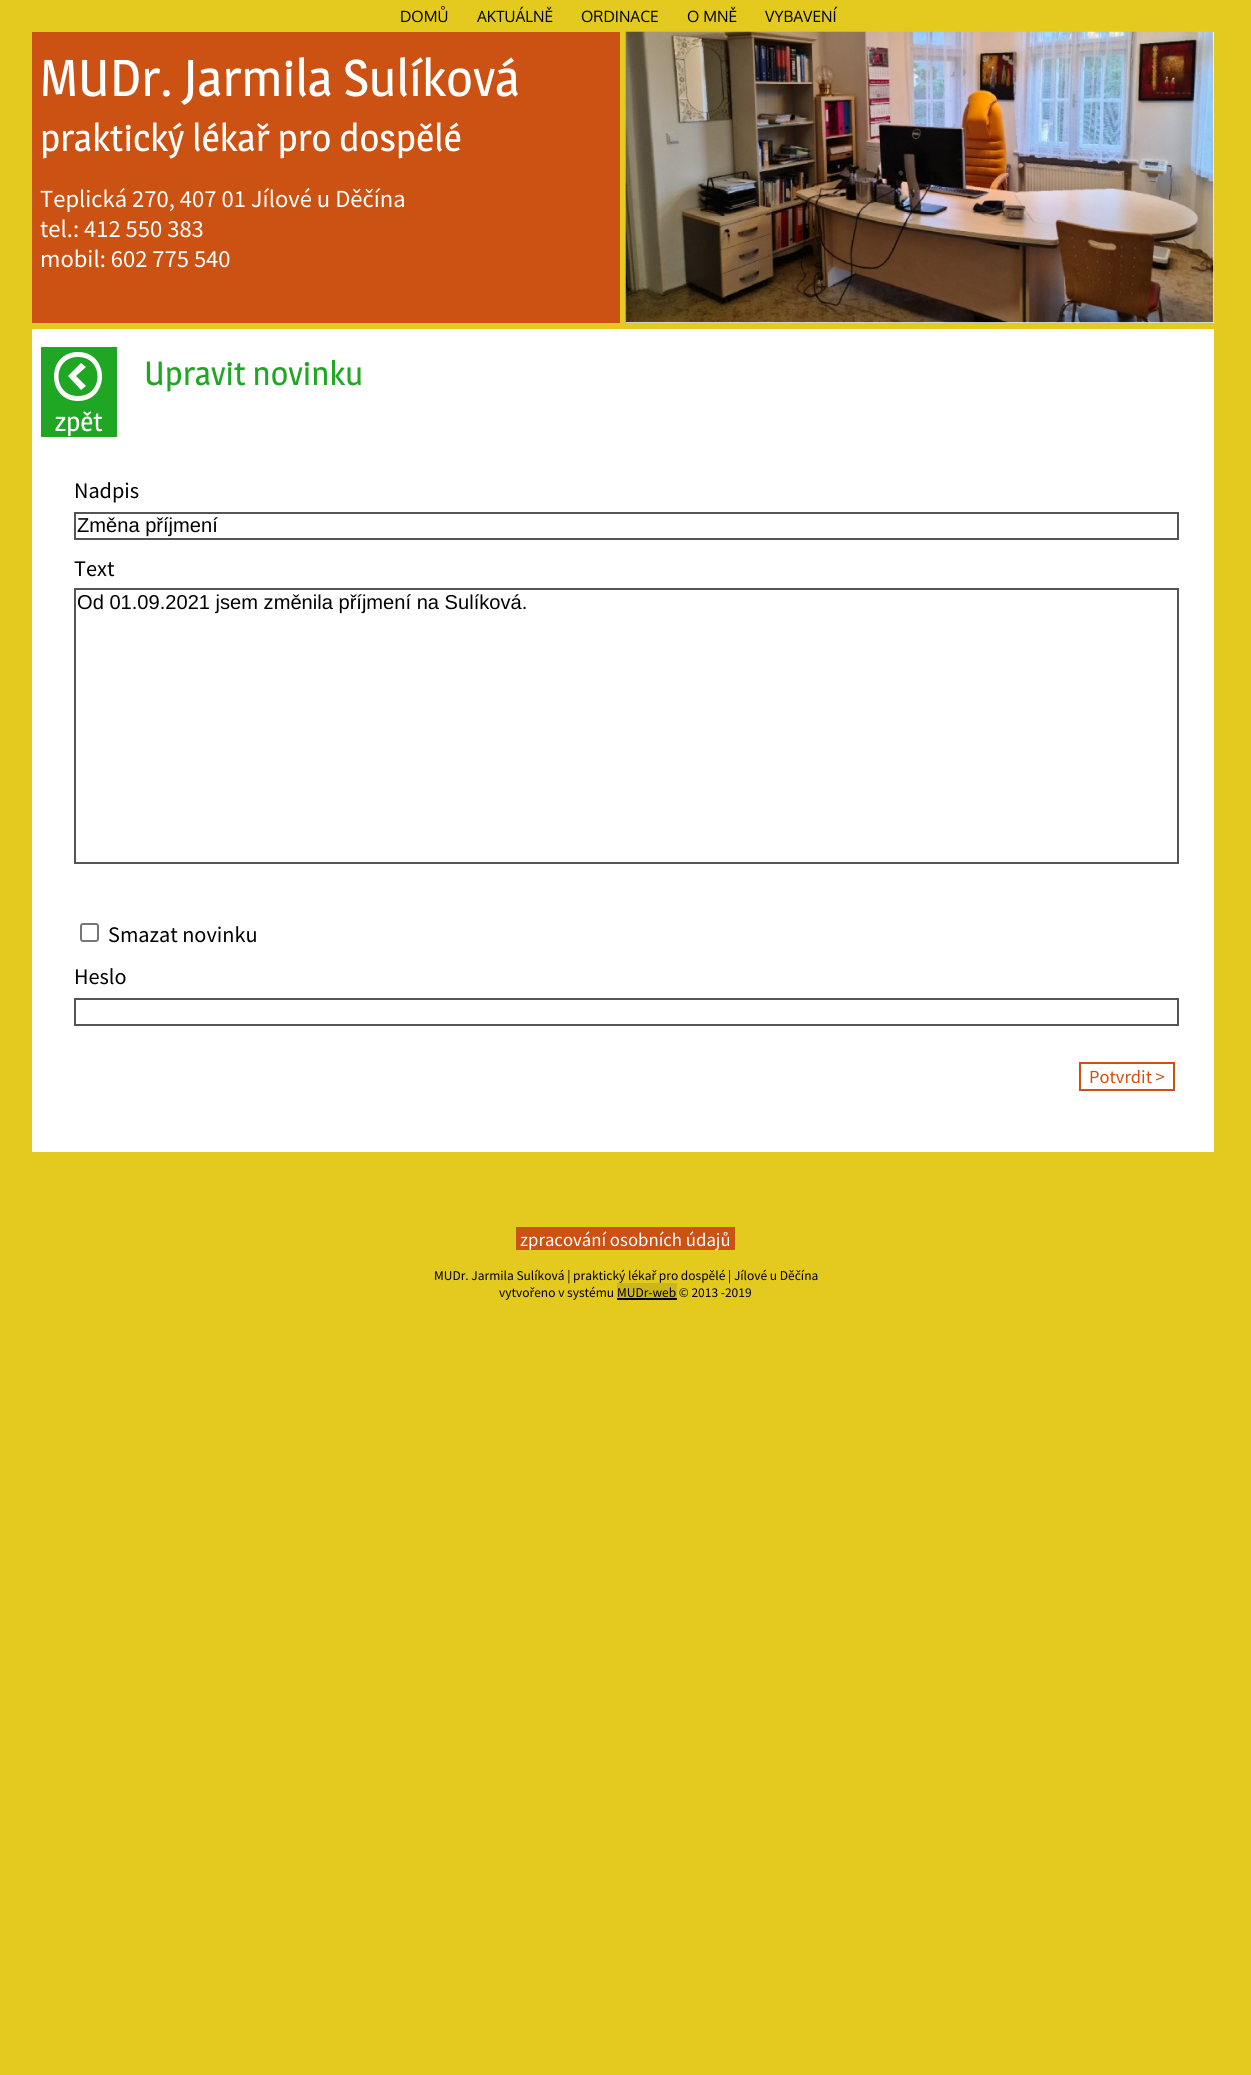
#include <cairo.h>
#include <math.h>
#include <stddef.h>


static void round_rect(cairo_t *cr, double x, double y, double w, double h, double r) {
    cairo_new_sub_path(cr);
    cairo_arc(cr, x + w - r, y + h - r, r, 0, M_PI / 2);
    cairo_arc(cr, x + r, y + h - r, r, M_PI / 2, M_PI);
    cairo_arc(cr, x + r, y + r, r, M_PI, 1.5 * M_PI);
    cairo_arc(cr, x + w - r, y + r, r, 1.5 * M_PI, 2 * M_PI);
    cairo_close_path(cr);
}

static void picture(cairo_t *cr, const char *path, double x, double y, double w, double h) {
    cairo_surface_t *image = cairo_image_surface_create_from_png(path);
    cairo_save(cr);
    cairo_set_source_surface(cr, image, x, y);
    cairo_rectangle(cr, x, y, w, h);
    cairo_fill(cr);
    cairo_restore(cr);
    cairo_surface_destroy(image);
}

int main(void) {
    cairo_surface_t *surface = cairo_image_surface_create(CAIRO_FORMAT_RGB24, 1251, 2075);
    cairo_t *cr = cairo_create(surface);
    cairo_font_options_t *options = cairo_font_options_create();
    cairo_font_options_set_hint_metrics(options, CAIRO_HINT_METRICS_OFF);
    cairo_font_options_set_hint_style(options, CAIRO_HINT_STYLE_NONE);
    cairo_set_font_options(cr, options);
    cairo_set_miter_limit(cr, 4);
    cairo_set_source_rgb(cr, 0.894, 0.792, 0.118);
    cairo_paint(cr);
    cairo_select_font_face(cr, "Oxygen", CAIRO_FONT_SLANT_NORMAL, CAIRO_FONT_WEIGHT_NORMAL);
    cairo_set_font_size(cr, 15.5);
    cairo_set_source_rgb(cr, 0, 0, 0);
    cairo_move_to(cr, 400, 22);
    cairo_show_text(cr, "DOMŮ");
    cairo_move_to(cr, 477, 22);
    cairo_show_text(cr, "AKTUÁLNĚ");
    cairo_move_to(cr, 581, 22);
    cairo_show_text(cr, "ORDINACE");
    cairo_move_to(cr, 687, 22);
    cairo_show_text(cr, "O MNĚ");
    cairo_move_to(cr, 765, 22);
    cairo_show_text(cr, "VYBAVENÍ");
    cairo_set_source_rgb(cr, 0.8, 0.322, 0.075);
    cairo_rectangle(cr, 32, 32, 588, 291);
    cairo_fill(cr);
    cairo_select_font_face(cr, "Magra", CAIRO_FONT_SLANT_NORMAL, CAIRO_FONT_WEIGHT_NORMAL);
    cairo_set_font_size(cr, 51.5);
    cairo_set_source_rgb(cr, 1, 1, 1);
    cairo_move_to(cr, 40, 96);
    cairo_show_text(cr, "MUDr. Jarmila Sulíková");
    cairo_set_font_size(cr, 38);
    cairo_move_to(cr, 40, 151);
    cairo_show_text(cr, "praktický lékař pro dospělé");
    cairo_select_font_face(cr, "Source Sans Pro", CAIRO_FONT_SLANT_NORMAL, CAIRO_FONT_WEIGHT_NORMAL);
    cairo_set_font_size(cr, 24.6);
    cairo_move_to(cr, 40, 207);
    cairo_show_text(cr, "Teplická 270, 407 01 Jílové u Děčína");
    cairo_move_to(cr, 40, 237);
    cairo_show_text(cr, "tel.: 412 550 383");
    cairo_move_to(cr, 40, 267);
    cairo_show_text(cr, "mobil: 602 775 540");
    cairo_rectangle(cr, 626, 32, 588, 291);
    cairo_fill(cr);
    picture(cr, "img1.png", 625, 31, 589, 292);
    cairo_rectangle(cr, 32, 329, 1182, 823);
    cairo_fill(cr);
    cairo_select_font_face(cr, "Magra", CAIRO_FONT_SLANT_NORMAL, CAIRO_FONT_WEIGHT_NORMAL);
    cairo_set_font_size(cr, 33.5);
    cairo_set_source_rgb(cr, 0.122, 0.651, 0.137);
    cairo_move_to(cr, 144, 385);
    cairo_show_text(cr, "Upravit novinku");
    cairo_select_font_face(cr, "Source Sans Pro", CAIRO_FONT_SLANT_NORMAL, CAIRO_FONT_WEIGHT_NORMAL);
    cairo_set_font_size(cr, 22.25);
    cairo_set_source_rgb(cr, 0, 0, 0);
    cairo_move_to(cr, 74, 498);
    cairo_show_text(cr, "Nadpis");
    cairo_rectangle(cr, 75, 513, 1103, 26);
    cairo_set_source_rgb(cr, 0.333, 0.333, 0.333);
    cairo_stroke(cr);
    cairo_select_font_face(cr, "Liberation Sans", CAIRO_FONT_SLANT_NORMAL, CAIRO_FONT_WEIGHT_NORMAL);
    cairo_set_font_size(cr, 20.1);
    cairo_set_source_rgb(cr, 0, 0, 0);
    cairo_move_to(cr, 77, 532);
    cairo_show_text(cr, "Změna příjmení");
    cairo_select_font_face(cr, "Source Sans Pro", CAIRO_FONT_SLANT_NORMAL, CAIRO_FONT_WEIGHT_NORMAL);
    cairo_set_font_size(cr, 22.25);
    cairo_move_to(cr, 74, 576);
    cairo_show_text(cr, "Text");
    cairo_rectangle(cr, 75, 589, 1103, 274);
    cairo_set_source_rgb(cr, 0.333, 0.333, 0.333);
    cairo_stroke(cr);
    cairo_select_font_face(cr, "Liberation Sans", CAIRO_FONT_SLANT_NORMAL, CAIRO_FONT_WEIGHT_NORMAL);
    cairo_set_font_size(cr, 20.1);
    cairo_set_source_rgb(cr, 0, 0, 0);
    cairo_move_to(cr, 77, 609);
    cairo_show_text(cr, "Od 01.09.2021 jsem změnila příjmení na Sulíková.");
    round_rect(cr, 81, 924, 17, 17, 2);
    cairo_set_source_rgb(cr, 0.463, 0.463, 0.463);
    cairo_stroke(cr);
    cairo_select_font_face(cr, "Source Sans Pro", CAIRO_FONT_SLANT_NORMAL, CAIRO_FONT_WEIGHT_NORMAL);
    cairo_set_font_size(cr, 22.25);
    cairo_set_source_rgb(cr, 0, 0, 0);
    cairo_move_to(cr, 108, 942);
    cairo_show_text(cr, "Smazat novinku");
    cairo_move_to(cr, 74, 984);
    cairo_show_text(cr, "Heslo");
    cairo_rectangle(cr, 75, 999, 1103, 26);
    cairo_set_source_rgb(cr, 0.333, 0.333, 0.333);
    cairo_stroke(cr);
    cairo_rectangle(cr, 1080, 1063, 94, 27);
    cairo_set_source_rgb(cr, 0.8, 0.322, 0.075);
    cairo_stroke(cr);
    cairo_set_font_size(cr, 18.5);
    cairo_move_to(cr, 1089, 1083);
    cairo_show_text(cr, "Potvrdit >");
    cairo_set_source_rgb(cr, 0.122, 0.651, 0.137);
    cairo_rectangle(cr, 41, 347, 76, 90);
    cairo_fill(cr);
    cairo_set_source_rgb(cr, 1, 1, 1);
    cairo_new_path(cr);
    cairo_move_to(cr, 78, 401);
    cairo_curve_to(cr, 110, 401, 110, 352, 78, 352);
    cairo_curve_to(cr, 46, 352, 46, 401, 78, 401);
    cairo_close_path(cr);
    cairo_move_to(cr, 78, 357);
    cairo_curve_to(cr, 104, 357, 104, 396, 78, 396);
    cairo_curve_to(cr, 52, 396, 52, 357, 78, 357);
    cairo_close_path(cr);
    cairo_move_to(cr, 86, 367);
    cairo_line_to(cr, 81, 363);
    cairo_line_to(cr, 68, 376);
    cairo_line_to(cr, 81, 390);
    cairo_line_to(cr, 86, 386);
    cairo_line_to(cr, 76, 376);
    cairo_close_path(cr);
    cairo_fill(cr);
    cairo_select_font_face(cr, "Magra", CAIRO_FONT_SLANT_NORMAL, CAIRO_FONT_WEIGHT_NORMAL);
    cairo_set_font_size(cr, 27);
    cairo_move_to(cr, 55, 431);
    cairo_show_text(cr, "zpět");
    cairo_set_source_rgb(cr, 0.8, 0.322, 0.075);
    cairo_rectangle(cr, 516, 1227, 219, 23);
    cairo_fill(cr);
    cairo_select_font_face(cr, "Source Sans Pro", CAIRO_FONT_SLANT_NORMAL, CAIRO_FONT_WEIGHT_NORMAL);
    cairo_set_font_size(cr, 18.75);
    cairo_set_source_rgb(cr, 1, 1, 1);
    cairo_move_to(cr, 520, 1246);
    cairo_show_text(cr, "zpracování osobních údajů");
    cairo_set_font_size(cr, 13.4);
    cairo_set_source_rgb(cr, 0, 0, 0);
    cairo_move_to(cr, 434, 1280);
    cairo_show_text(cr, "MUDr. Jarmila Sulíková | praktický lékař pro dospělé | Jílové u Děčína");
    cairo_move_to(cr, 499, 1297);
    cairo_show_text(cr, "vytvořeno v systému");
    cairo_set_source_rgb(cr, 0.804, 0.714, 0.106);
    cairo_rectangle(cr, 617, 1283, 60, 15);
    cairo_fill(cr);
    cairo_set_source_rgb(cr, 0, 0, 0);
    cairo_move_to(cr, 617, 1297);
    cairo_show_text(cr, "MUDr-web © 2013 -2019");
    cairo_rectangle(cr, 617, 1298, 60, 2);
    cairo_fill(cr);
    cairo_surface_write_to_png(surface, "page.png");
    cairo_font_options_destroy(options);
    cairo_destroy(cr);
    cairo_surface_destroy(surface);
    return 0;
}
